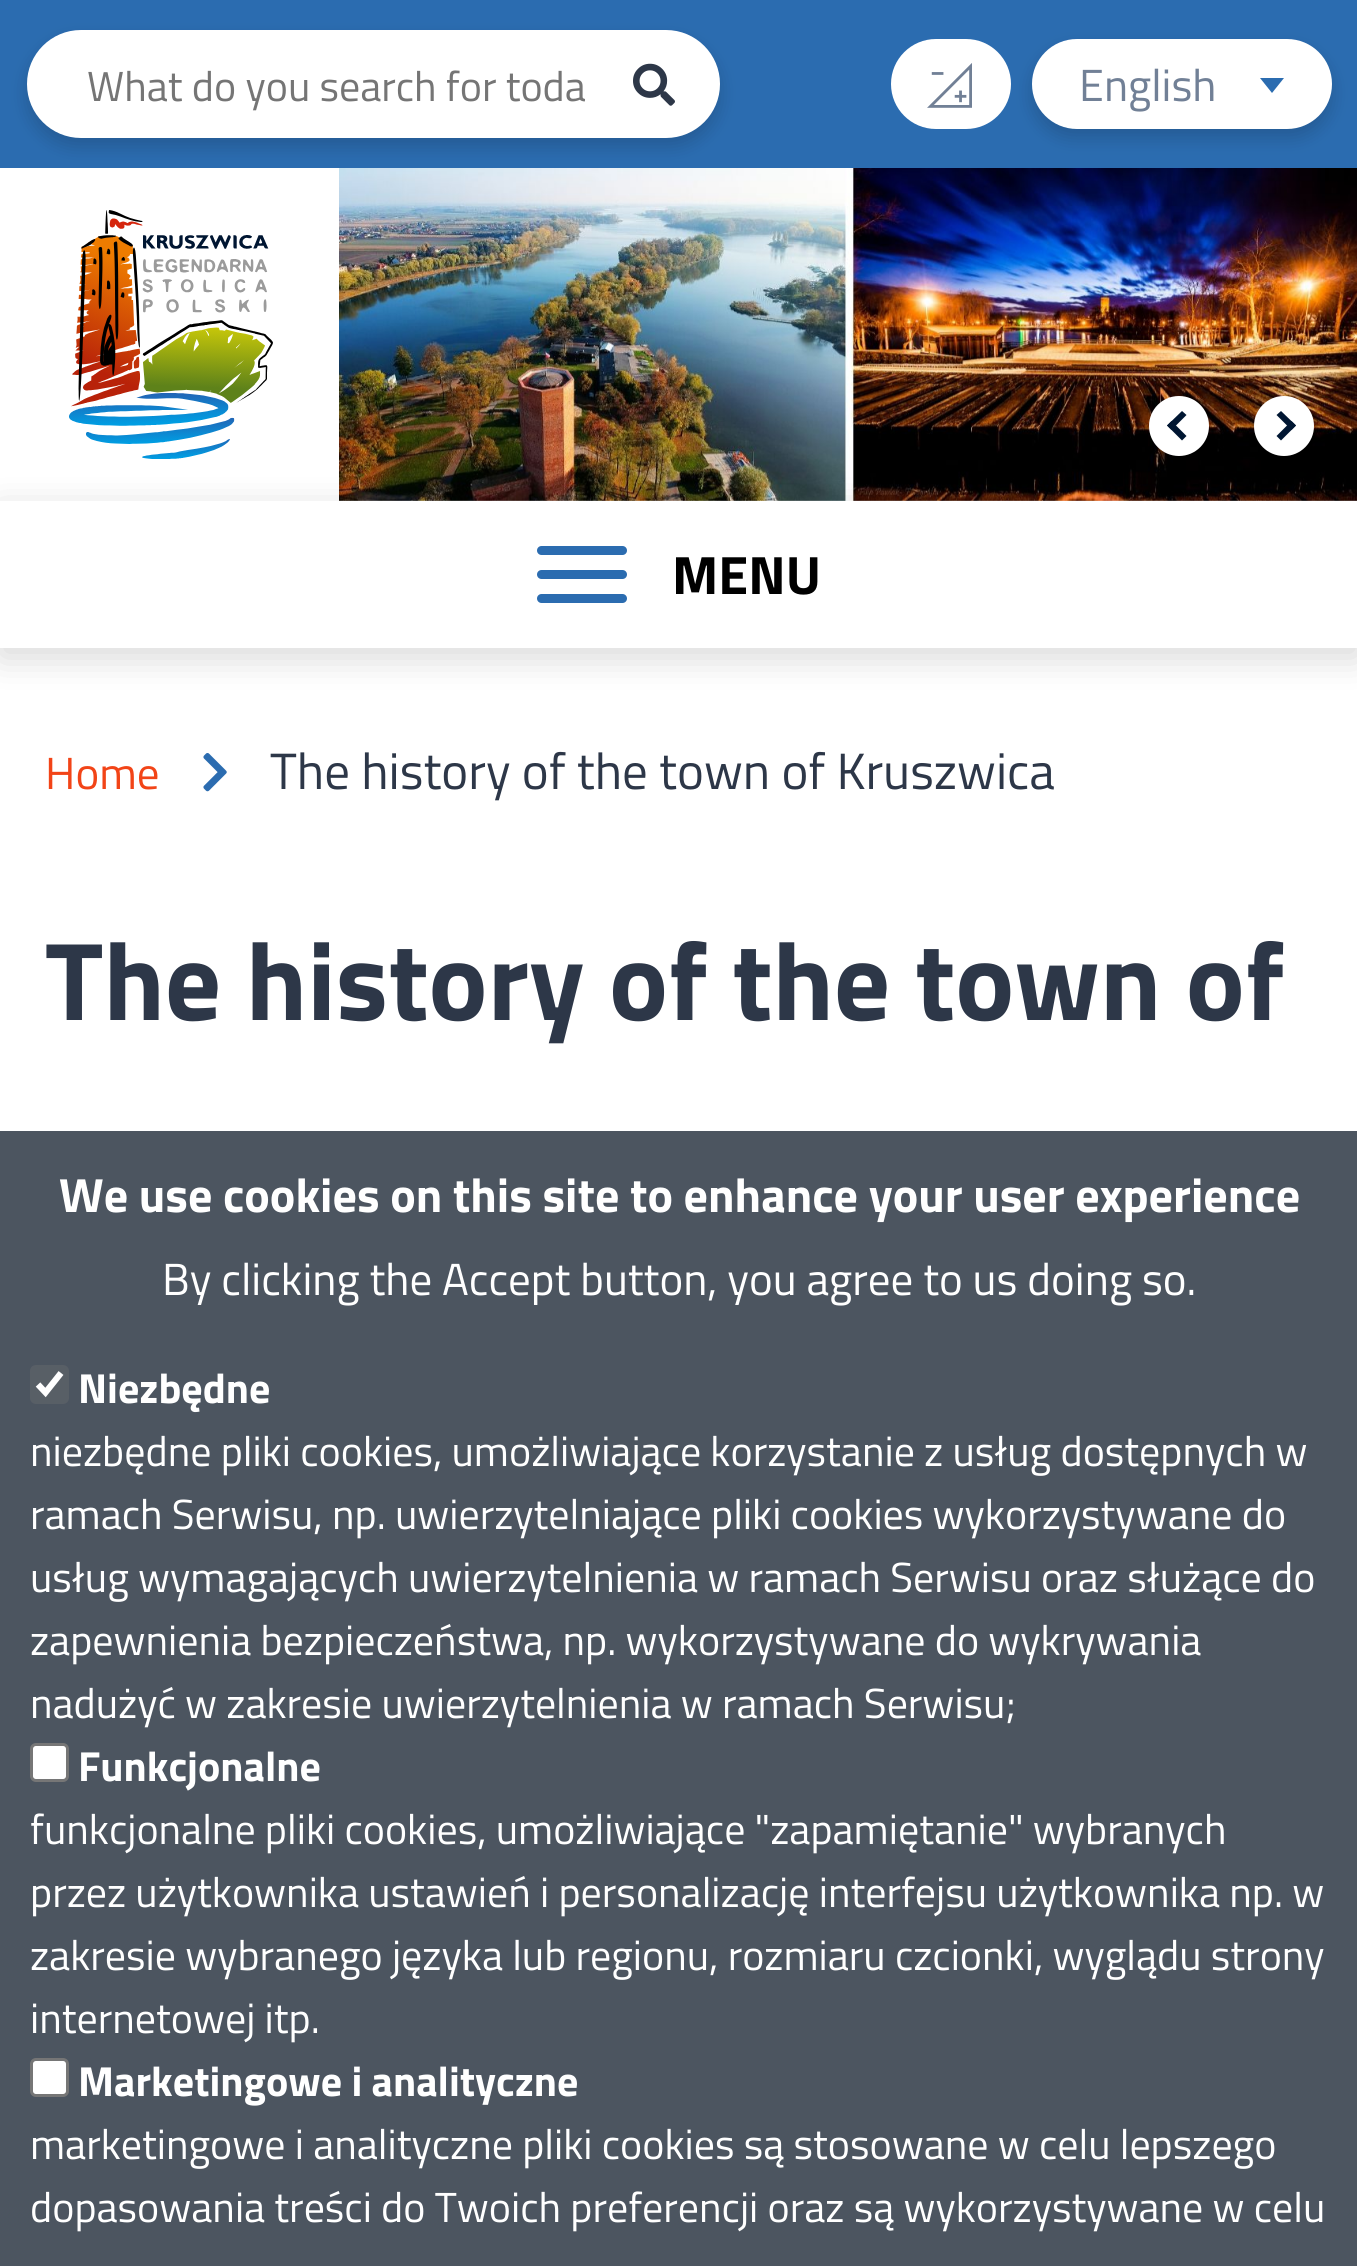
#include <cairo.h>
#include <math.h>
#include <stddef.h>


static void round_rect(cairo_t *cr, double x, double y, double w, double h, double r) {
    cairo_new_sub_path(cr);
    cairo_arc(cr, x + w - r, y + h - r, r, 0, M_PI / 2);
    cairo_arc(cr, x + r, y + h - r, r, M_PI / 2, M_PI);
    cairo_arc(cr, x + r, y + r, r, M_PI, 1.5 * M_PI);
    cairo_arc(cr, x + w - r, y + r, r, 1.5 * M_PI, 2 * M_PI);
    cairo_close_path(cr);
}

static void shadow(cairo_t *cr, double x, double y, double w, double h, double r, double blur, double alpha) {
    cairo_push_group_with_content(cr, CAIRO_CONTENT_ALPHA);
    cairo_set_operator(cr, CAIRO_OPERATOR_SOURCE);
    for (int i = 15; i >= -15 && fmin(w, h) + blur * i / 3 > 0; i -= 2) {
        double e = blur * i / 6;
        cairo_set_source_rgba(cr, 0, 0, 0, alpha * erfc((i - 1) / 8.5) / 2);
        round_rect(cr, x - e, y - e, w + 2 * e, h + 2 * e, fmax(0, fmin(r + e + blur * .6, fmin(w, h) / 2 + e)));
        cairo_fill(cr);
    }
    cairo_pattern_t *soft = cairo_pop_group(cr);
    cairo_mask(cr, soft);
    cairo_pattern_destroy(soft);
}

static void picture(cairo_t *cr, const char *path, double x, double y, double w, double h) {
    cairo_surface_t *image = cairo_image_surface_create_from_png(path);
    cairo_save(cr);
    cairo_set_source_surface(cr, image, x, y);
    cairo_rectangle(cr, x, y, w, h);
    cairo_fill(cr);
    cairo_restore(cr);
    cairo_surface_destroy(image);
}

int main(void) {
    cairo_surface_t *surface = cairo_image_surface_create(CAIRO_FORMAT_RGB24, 1357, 2266);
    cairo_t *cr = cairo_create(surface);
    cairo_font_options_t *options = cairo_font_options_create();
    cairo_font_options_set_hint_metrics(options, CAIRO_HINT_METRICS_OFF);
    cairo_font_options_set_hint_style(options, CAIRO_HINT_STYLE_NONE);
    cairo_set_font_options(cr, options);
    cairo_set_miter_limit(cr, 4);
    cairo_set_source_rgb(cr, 1, 1, 1);
    cairo_paint(cr);
    cairo_set_source_rgb(cr, 0.169, 0.424, 0.69);
    cairo_rectangle(cr, 0, 0, 1357, 168);
    cairo_fill(cr);
    cairo_set_source_rgb(cr, 0, 0, 0);
    shadow(cr, 27, 39, 693, 108, 54, 9, 0.16);
    cairo_set_source_rgb(cr, 1, 1, 1);
    round_rect(cr, 27, 30, 693, 108, 54);
    cairo_fill(cr);
    cairo_select_font_face(cr, "Titillium Web", CAIRO_FONT_SLANT_NORMAL, CAIRO_FONT_WEIGHT_NORMAL);
    cairo_set_font_size(cr, 42);
    cairo_set_source_rgb(cr, 0.459, 0.459, 0.459);
    cairo_move_to(cr, 87, 101);
    cairo_show_text(cr, "What do you search for toda");
    picture(cr, "img1.png", 633, 63, 42, 43);
    cairo_set_source_rgb(cr, 1, 1, 1);
    round_rect(cr, 891, 39, 120, 90, 45);
    cairo_fill(cr);
    picture(cr, "img2.png", 927, 63, 45, 45);
    cairo_set_source_rgb(cr, 0, 0, 0);
    shadow(cr, 1032, 48, 300, 90, 45, 9, 0.16);
    cairo_set_source_rgb(cr, 1, 1, 1);
    round_rect(cr, 1032, 39, 300, 90, 45);
    cairo_fill(cr);
    cairo_set_font_size(cr, 45);
    cairo_set_source_rgb(cr, 0.443, 0.502, 0.588);
    cairo_move_to(cr, 1079, 101);
    cairo_show_text(cr, "English");
    cairo_set_source_rgb(cr, 0.169, 0.424, 0.69);
    cairo_new_path(cr);
    cairo_move_to(cr, 1260, 78);
    cairo_line_to(cr, 1284, 78);
    cairo_line_to(cr, 1272, 93);
    cairo_close_path(cr);
    cairo_fill(cr);
    picture(cr, "img3.png", 69, 210, 204, 249);
    picture(cr, "img4.png", 339, 168, 1018, 333);
    cairo_set_source_rgb(cr, 0, 0, 0);
    shadow(cr, 1149, 405, 60, 60, 30, 9, 0.16);
    cairo_save(cr);
    cairo_set_fill_rule(cr, CAIRO_FILL_RULE_EVEN_ODD);
    cairo_new_path(cr);
    cairo_move_to(cr, 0, 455);
    cairo_line_to(cr, 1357, 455);
    cairo_line_to(cr, 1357, 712);
    cairo_line_to(cr, 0, 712);
    cairo_close_path(cr);
    cairo_move_to(cr, 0, 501);
    cairo_line_to(cr, 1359, 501);
    cairo_line_to(cr, 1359, 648);
    cairo_line_to(cr, 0, 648);
    cairo_close_path(cr);
    cairo_clip(cr);
    shadow(cr, 0, 510, 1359, 147, 0, 18, 0.16);
    cairo_restore(cr);
    cairo_set_source_rgb(cr, 1, 1, 1);
    cairo_arc(cr, 1179, 426, 30, 0, 2 * M_PI);
    cairo_fill(cr);
    cairo_set_source_rgb(cr, 0, 0.086, 0.196);
    cairo_new_path(cr);
    cairo_move_to(cr, 1186.5, 436);
    cairo_line_to(cr, 1182, 440.5);
    cairo_line_to(cr, 1167, 425.5);
    cairo_line_to(cr, 1171.5, 421);
    cairo_close_path(cr);
    cairo_fill(cr);
    cairo_new_path(cr);
    cairo_move_to(cr, 1186.5, 415);
    cairo_line_to(cr, 1171.5, 430);
    cairo_line_to(cr, 1167, 425.5);
    cairo_line_to(cr, 1182, 411);
    cairo_close_path(cr);
    cairo_fill(cr);
    cairo_set_source_rgb(cr, 0, 0, 0);
    shadow(cr, 1254, 405, 60, 60, 30, 9, 0.16);
    cairo_set_source_rgb(cr, 1, 1, 1);
    cairo_arc(cr, 1284, 426, 30, 0, 2 * M_PI);
    cairo_fill(cr);
    cairo_set_source_rgb(cr, 0, 0.086, 0.196);
    cairo_new_path(cr);
    cairo_move_to(cr, 1276.5, 415);
    cairo_line_to(cr, 1281, 411);
    cairo_line_to(cr, 1296, 425.5);
    cairo_line_to(cr, 1291.5, 430);
    cairo_close_path(cr);
    cairo_fill(cr);
    cairo_new_path(cr);
    cairo_move_to(cr, 1276.5, 436);
    cairo_line_to(cr, 1291.5, 421);
    cairo_line_to(cr, 1296, 425.5);
    cairo_line_to(cr, 1281, 440.5);
    cairo_close_path(cr);
    cairo_fill(cr);
    cairo_set_source_rgb(cr, 0.169, 0.424, 0.69);
    round_rect(cr, 537, 546, 90, 9, 4.5);
    cairo_fill(cr);
    round_rect(cr, 537, 570, 90, 9, 4.5);
    cairo_fill(cr);
    round_rect(cr, 537, 594, 90, 9, 4.5);
    cairo_fill(cr);
    cairo_select_font_face(cr, "Titillium Web", CAIRO_FONT_SLANT_NORMAL, CAIRO_FONT_WEIGHT_BOLD);
    cairo_set_font_size(cr, 54);
    cairo_set_source_rgb(cr, 0, 0, 0);
    cairo_move_to(cr, 672, 594);
    cairo_show_text(cr, "MENU");
    cairo_select_font_face(cr, "Titillium Web", CAIRO_FONT_SLANT_NORMAL, CAIRO_FONT_WEIGHT_NORMAL);
    cairo_set_font_size(cr, 45);
    cairo_set_source_rgb(cr, 0.949, 0.267, 0.09);
    cairo_move_to(cr, 45, 789);
    cairo_show_text(cr, "Home");
    picture(cr, "img5.png", 203, 753, 24, 39);
    cairo_set_font_size(cr, 51);
    cairo_set_source_rgb(cr, 0.176, 0.216, 0.282);
    cairo_move_to(cr, 270, 789);
    cairo_show_text(cr, "The history of the town of Kruszwica");
    cairo_select_font_face(cr, "Titillium Web", CAIRO_FONT_SLANT_NORMAL, CAIRO_FONT_WEIGHT_BOLD);
    cairo_set_font_size(cr, 111);
    cairo_move_to(cr, 45, 1020);
    cairo_show_text(cr, "The history of the town of");
    cairo_set_source_rgba(cr, 0.094, 0.137, 0.196, 0.77);
    cairo_rectangle(cr, 0, 1131, 1357, 1135);
    cairo_fill(cr);
    cairo_set_font_size(cr, 48);
    cairo_set_source_rgb(cr, 1, 1, 1);
    cairo_move_to(cr, 59, 1212);
    cairo_show_text(cr, "We use cookies on this site to enhance your user experience");
    cairo_select_font_face(cr, "Titillium Web", CAIRO_FONT_SLANT_NORMAL, CAIRO_FONT_WEIGHT_NORMAL);
    cairo_set_font_size(cr, 45);
    cairo_move_to(cr, 162, 1295);
    cairo_show_text(cr, "By clicking the Accept button, you agree to us doing so.");
    cairo_set_source_rgba(cr, 0.463, 0.463, 0.463, 0.3);
    round_rect(cr, 30, 1365, 39, 39, 6);
    cairo_fill(cr);
    cairo_new_path(cr);
    cairo_move_to(cr, 38, 1384.5);
    cairo_line_to(cr, 45.5, 1392.5);
    cairo_line_to(cr, 61, 1373);
    cairo_set_source_rgb(cr, 1, 1, 1);
    cairo_set_line_width(cr, 6.2);
    cairo_stroke(cr);
    cairo_select_font_face(cr, "Titillium Web", CAIRO_FONT_SLANT_NORMAL, CAIRO_FONT_WEIGHT_BOLD);
    cairo_set_font_size(cr, 42);
    cairo_move_to(cr, 78, 1403);
    cairo_show_text(cr, "Niezbędne");
    cairo_select_font_face(cr, "Titillium Web", CAIRO_FONT_SLANT_NORMAL, CAIRO_FONT_WEIGHT_NORMAL);
    cairo_move_to(cr, 30, 1466);
    cairo_show_text(cr, "niezbędne pliki cookies, umożliwiające korzystanie z usług dostępnych w");
    cairo_move_to(cr, 30, 1529);
    cairo_show_text(cr, "ramach Serwisu, np. uwierzytelniające pliki cookies wykorzystywane do");
    cairo_move_to(cr, 30, 1592);
    cairo_show_text(cr, "usług wymagających uwierzytelnienia w ramach Serwisu oraz służące do");
    cairo_move_to(cr, 30, 1655);
    cairo_show_text(cr, "zapewnienia bezpieczeństwa, np. wykorzystywane do wykrywania");
    cairo_move_to(cr, 30, 1718);
    cairo_show_text(cr, "nadużyć w zakresie uwierzytelnienia w ramach Serwisu;");
    round_rect(cr, 31.5, 1744.5, 36, 36, 4.5);
    cairo_fill_preserve(cr);
    cairo_set_source_rgb(cr, 0.463, 0.463, 0.463);
    cairo_set_line_width(cr, 3);
    cairo_stroke(cr);
    cairo_select_font_face(cr, "Titillium Web", CAIRO_FONT_SLANT_NORMAL, CAIRO_FONT_WEIGHT_BOLD);
    cairo_set_source_rgb(cr, 1, 1, 1);
    cairo_move_to(cr, 78, 1781);
    cairo_show_text(cr, "Funkcjonalne");
    cairo_select_font_face(cr, "Titillium Web", CAIRO_FONT_SLANT_NORMAL, CAIRO_FONT_WEIGHT_NORMAL);
    cairo_move_to(cr, 30, 1844);
    cairo_show_text(cr, "funkcjonalne pliki cookies, umożliwiające \"zapamiętanie\" wybranych");
    cairo_move_to(cr, 30, 1907);
    cairo_show_text(cr, "przez użytkownika ustawień i personalizację interfejsu użytkownika np. w");
    cairo_move_to(cr, 30, 1970);
    cairo_show_text(cr, "zakresie wybranego języka lub regionu, rozmiaru czcionki, wyglądu strony");
    cairo_move_to(cr, 30, 2033);
    cairo_show_text(cr, "internetowej itp.");
    round_rect(cr, 31.5, 2059.5, 36, 36, 4.5);
    cairo_fill_preserve(cr);
    cairo_set_source_rgb(cr, 0.463, 0.463, 0.463);
    cairo_stroke(cr);
    cairo_select_font_face(cr, "Titillium Web", CAIRO_FONT_SLANT_NORMAL, CAIRO_FONT_WEIGHT_BOLD);
    cairo_set_source_rgb(cr, 1, 1, 1);
    cairo_move_to(cr, 78, 2096);
    cairo_show_text(cr, "Marketingowe i analityczne");
    cairo_select_font_face(cr, "Titillium Web", CAIRO_FONT_SLANT_NORMAL, CAIRO_FONT_WEIGHT_NORMAL);
    cairo_move_to(cr, 30, 2159);
    cairo_show_text(cr, "marketingowe i analityczne pliki cookies są stosowane w celu lepszego");
    cairo_move_to(cr, 30, 2222);
    cairo_show_text(cr, "dopasowania treści do Twoich preferencji oraz są wykorzystywane w celu");
    cairo_surface_write_to_png(surface, "page.png");
    cairo_font_options_destroy(options);
    cairo_destroy(cr);
    cairo_surface_destroy(surface);
    return 0;
}
